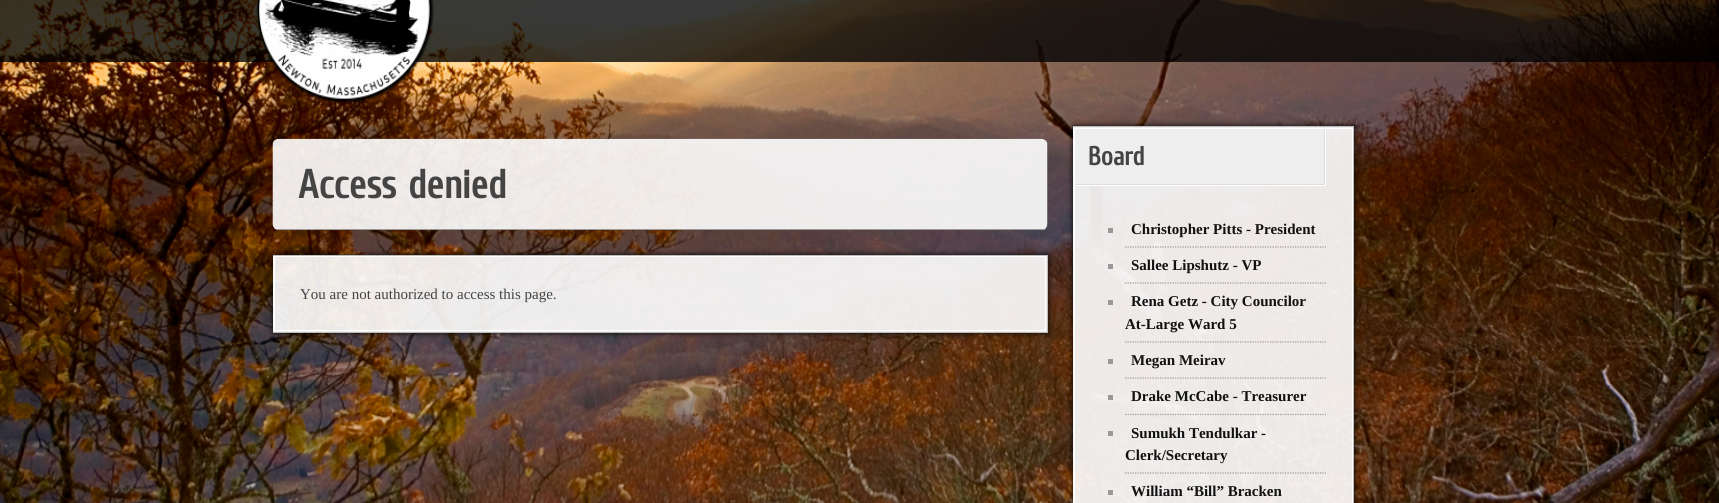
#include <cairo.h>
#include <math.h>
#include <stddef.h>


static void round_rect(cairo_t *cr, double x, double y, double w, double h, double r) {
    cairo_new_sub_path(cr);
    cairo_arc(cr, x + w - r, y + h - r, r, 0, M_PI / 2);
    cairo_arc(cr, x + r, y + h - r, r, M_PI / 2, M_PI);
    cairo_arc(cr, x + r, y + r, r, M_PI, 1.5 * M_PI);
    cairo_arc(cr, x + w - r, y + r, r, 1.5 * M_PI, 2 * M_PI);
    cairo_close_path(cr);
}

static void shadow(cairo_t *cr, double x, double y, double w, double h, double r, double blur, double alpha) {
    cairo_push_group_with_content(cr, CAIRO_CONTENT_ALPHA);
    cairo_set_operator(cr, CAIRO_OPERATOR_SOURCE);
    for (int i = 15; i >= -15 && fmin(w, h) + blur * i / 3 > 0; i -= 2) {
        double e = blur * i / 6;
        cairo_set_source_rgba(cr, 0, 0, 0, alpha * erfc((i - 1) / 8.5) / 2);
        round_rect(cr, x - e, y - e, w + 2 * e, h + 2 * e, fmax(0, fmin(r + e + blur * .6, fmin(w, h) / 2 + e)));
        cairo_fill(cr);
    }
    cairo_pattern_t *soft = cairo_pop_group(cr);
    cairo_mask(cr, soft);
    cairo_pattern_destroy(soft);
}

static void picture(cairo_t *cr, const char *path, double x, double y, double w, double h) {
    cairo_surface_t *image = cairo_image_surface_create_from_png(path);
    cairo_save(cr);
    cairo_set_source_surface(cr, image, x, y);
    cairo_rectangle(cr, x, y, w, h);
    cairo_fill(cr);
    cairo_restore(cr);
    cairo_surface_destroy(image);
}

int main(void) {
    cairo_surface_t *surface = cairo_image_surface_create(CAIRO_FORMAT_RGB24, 1719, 503);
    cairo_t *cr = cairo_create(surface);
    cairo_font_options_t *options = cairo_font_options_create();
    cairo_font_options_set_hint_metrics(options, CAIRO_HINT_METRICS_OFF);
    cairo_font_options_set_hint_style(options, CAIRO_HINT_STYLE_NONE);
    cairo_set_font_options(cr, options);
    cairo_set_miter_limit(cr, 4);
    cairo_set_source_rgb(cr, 1, 1, 1);
    cairo_paint(cr);
    picture(cr, "img1.png", 0, 0, 1719, 503);
    cairo_set_source_rgba(cr, 0, 0, 0, 0.78);
    cairo_rectangle(cr, 0, 0, 1719, 62);
    cairo_fill(cr);
    picture(cr, "img2.png", 256, 0, 178, 104);
    picture(cr, "img3.png", 272, 138, 776, 92);
    cairo_set_source_rgb(cr, 0.6, 0.6, 0.6);
    cairo_rectangle(cr, 276, 229, 769, 1);
    cairo_fill(cr);
    cairo_select_font_face(cr, "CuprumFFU", CAIRO_FONT_SLANT_NORMAL, CAIRO_FONT_WEIGHT_BOLD);
    cairo_set_font_size(cr, 40);
    cairo_set_source_rgb(cr, 0.267, 0.267, 0.267);
    cairo_move_to(cr, 298, 198);
    cairo_show_text(cr, "Access denied");
    cairo_save(cr);
    cairo_set_fill_rule(cr, CAIRO_FILL_RULE_EVEN_ODD);
    cairo_new_path(cr);
    cairo_move_to(cr, 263, 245);
    cairo_line_to(cr, 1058, 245);
    cairo_line_to(cr, 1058, 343);
    cairo_line_to(cr, 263, 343);
    cairo_close_path(cr);
    cairo_move_to(cr, 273, 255);
    cairo_line_to(cr, 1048, 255);
    cairo_line_to(cr, 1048, 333);
    cairo_line_to(cr, 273, 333);
    cairo_close_path(cr);
    cairo_clip(cr);
    cairo_set_source_rgb(cr, 0, 0, 0);
    shadow(cr, 273, 255, 775, 78, 0, 3, 1);
    cairo_restore(cr);
    cairo_rectangle(cr, 273.5, 255.5, 774, 77);
    cairo_set_source_rgb(cr, 0.733, 0.733, 0.733);
    cairo_set_line_width(cr, 1);
    cairo_stroke(cr);
    cairo_set_source_rgba(cr, 1, 1, 1, 0.9);
    cairo_rectangle(cr, 273, 256, 774, 76);
    cairo_fill(cr);
    cairo_rectangle(cr, 274.5, 256.5, 771, 74);
    cairo_set_source_rgb(cr, 1, 1, 1);
    cairo_stroke(cr);
    cairo_select_font_face(cr, "Liberation Serif", CAIRO_FONT_SLANT_NORMAL, CAIRO_FONT_WEIGHT_NORMAL);
    cairo_set_font_size(cr, 15);
    cairo_set_source_rgb(cr, 0.267, 0.267, 0.267);
    cairo_move_to(cr, 300, 299);
    cairo_show_text(cr, "You are not authorized to access this page.");
    cairo_save(cr);
    cairo_set_fill_rule(cr, CAIRO_FILL_RULE_EVEN_ODD);
    cairo_new_path(cr);
    cairo_move_to(cr, 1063, 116);
    cairo_line_to(cr, 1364, 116);
    cairo_line_to(cr, 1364, 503);
    cairo_line_to(cr, 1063, 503);
    cairo_close_path(cr);
    cairo_move_to(cr, 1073, 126);
    cairo_line_to(cr, 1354, 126);
    cairo_line_to(cr, 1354, 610);
    cairo_line_to(cr, 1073, 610);
    cairo_close_path(cr);
    cairo_clip(cr);
    cairo_set_source_rgb(cr, 0, 0, 0);
    shadow(cr, 1073, 126, 281, 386, 0, 3, 1);
    cairo_restore(cr);
    cairo_rectangle(cr, 1073.5, 126.5, 280, 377);
    cairo_set_source_rgb(cr, 0.733, 0.733, 0.733);
    cairo_stroke(cr);
    cairo_set_source_rgba(cr, 1, 1, 1, 0.9);
    cairo_rectangle(cr, 1073, 127, 280, 376);
    cairo_fill(cr);
    cairo_rectangle(cr, 1074.5, 128.5, 278, 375);
    cairo_set_source_rgb(cr, 1, 1, 1);
    cairo_stroke(cr);
    cairo_set_source_rgb(cr, 0.933, 0.933, 0.933);
    cairo_rectangle(cr, 1075, 129, 249, 55);
    cairo_fill(cr);
    cairo_set_source_rgb(cr, 1, 1, 1);
    cairo_rectangle(cr, 1325, 129, 1, 57);
    cairo_fill(cr);
    cairo_rectangle(cr, 1075, 185, 251, 1);
    cairo_fill(cr);
    cairo_set_source_rgb(cr, 0.867, 0.867, 0.867);
    cairo_rectangle(cr, 1324, 129, 1, 56);
    cairo_fill(cr);
    cairo_rectangle(cr, 1075, 184, 250, 1);
    cairo_fill(cr);
    cairo_select_font_face(cr, "CuprumFFU", CAIRO_FONT_SLANT_NORMAL, CAIRO_FONT_WEIGHT_BOLD);
    cairo_set_font_size(cr, 26);
    cairo_set_source_rgb(cr, 0.267, 0.267, 0.267);
    cairo_move_to(cr, 1088, 165);
    cairo_show_text(cr, "Board");
    cairo_new_path(cr);
    cairo_move_to(cr, 1125, 247);
    cairo_line_to(cr, 1326, 247);
    cairo_set_source_rgb(cr, 0.6, 0.6, 0.6);
    cairo_set_line_width(cr, 1.2);
    cairo_set_dash(cr, (double[]){1.25, 1.25}, 2, 0);
    cairo_stroke(cr);
    cairo_rectangle(cr, 1108, 228, 5, 5);
    cairo_fill(cr);
    cairo_select_font_face(cr, "Liberation Serif", CAIRO_FONT_SLANT_NORMAL, CAIRO_FONT_WEIGHT_BOLD);
    cairo_set_font_size(cr, 15);
    cairo_set_source_rgb(cr, 0.067, 0.067, 0.067);
    cairo_move_to(cr, 1131, 234);
    cairo_show_text(cr, "Christopher Pitts - President");
    cairo_new_path(cr);
    cairo_move_to(cr, 1125, 283);
    cairo_line_to(cr, 1326, 283);
    cairo_set_source_rgb(cr, 0.6, 0.6, 0.6);
    cairo_stroke(cr);
    cairo_rectangle(cr, 1108, 264, 5, 5);
    cairo_fill(cr);
    cairo_set_source_rgb(cr, 0.067, 0.067, 0.067);
    cairo_move_to(cr, 1131, 270);
    cairo_show_text(cr, "Sallee Lipshutz - VP");
    cairo_new_path(cr);
    cairo_move_to(cr, 1125, 342);
    cairo_line_to(cr, 1326, 342);
    cairo_set_source_rgb(cr, 0.6, 0.6, 0.6);
    cairo_stroke(cr);
    cairo_rectangle(cr, 1108, 300, 5, 5);
    cairo_fill(cr);
    cairo_set_source_rgb(cr, 0.067, 0.067, 0.067);
    cairo_move_to(cr, 1131, 306);
    cairo_show_text(cr, "Rena Getz - City Councilor");
    cairo_move_to(cr, 1125, 329);
    cairo_show_text(cr, "At-Large Ward 5");
    cairo_new_path(cr);
    cairo_move_to(cr, 1125, 378);
    cairo_line_to(cr, 1326, 378);
    cairo_set_source_rgb(cr, 0.6, 0.6, 0.6);
    cairo_stroke(cr);
    cairo_rectangle(cr, 1108, 359, 5, 5);
    cairo_fill(cr);
    cairo_set_source_rgb(cr, 0.067, 0.067, 0.067);
    cairo_move_to(cr, 1131, 365);
    cairo_show_text(cr, "Megan Meirav");
    cairo_new_path(cr);
    cairo_move_to(cr, 1125, 414.5);
    cairo_line_to(cr, 1326, 414.5);
    cairo_set_source_rgb(cr, 0.6, 0.6, 0.6);
    cairo_stroke(cr);
    cairo_rectangle(cr, 1108, 395, 5, 5);
    cairo_fill(cr);
    cairo_set_source_rgb(cr, 0.067, 0.067, 0.067);
    cairo_move_to(cr, 1131, 401);
    cairo_show_text(cr, "Drake McCabe - Treasurer");
    cairo_new_path(cr);
    cairo_move_to(cr, 1125, 473);
    cairo_line_to(cr, 1326, 473);
    cairo_set_source_rgb(cr, 0.6, 0.6, 0.6);
    cairo_stroke(cr);
    cairo_rectangle(cr, 1108, 431, 5, 5);
    cairo_fill(cr);
    cairo_set_source_rgb(cr, 0.067, 0.067, 0.067);
    cairo_move_to(cr, 1131, 438);
    cairo_show_text(cr, "Sumukh Tendulkar -");
    cairo_move_to(cr, 1125, 460);
    cairo_show_text(cr, "Clerk/Secretary");
    cairo_set_source_rgb(cr, 0.6, 0.6, 0.6);
    cairo_rectangle(cr, 1108, 490, 5, 5);
    cairo_fill(cr);
    cairo_set_source_rgb(cr, 0.067, 0.067, 0.067);
    cairo_move_to(cr, 1131, 496);
    cairo_show_text(cr, "William “Bill” Bracken");
    cairo_surface_write_to_png(surface, "page.png");
    cairo_font_options_destroy(options);
    cairo_destroy(cr);
    cairo_surface_destroy(surface);
    return 0;
}
